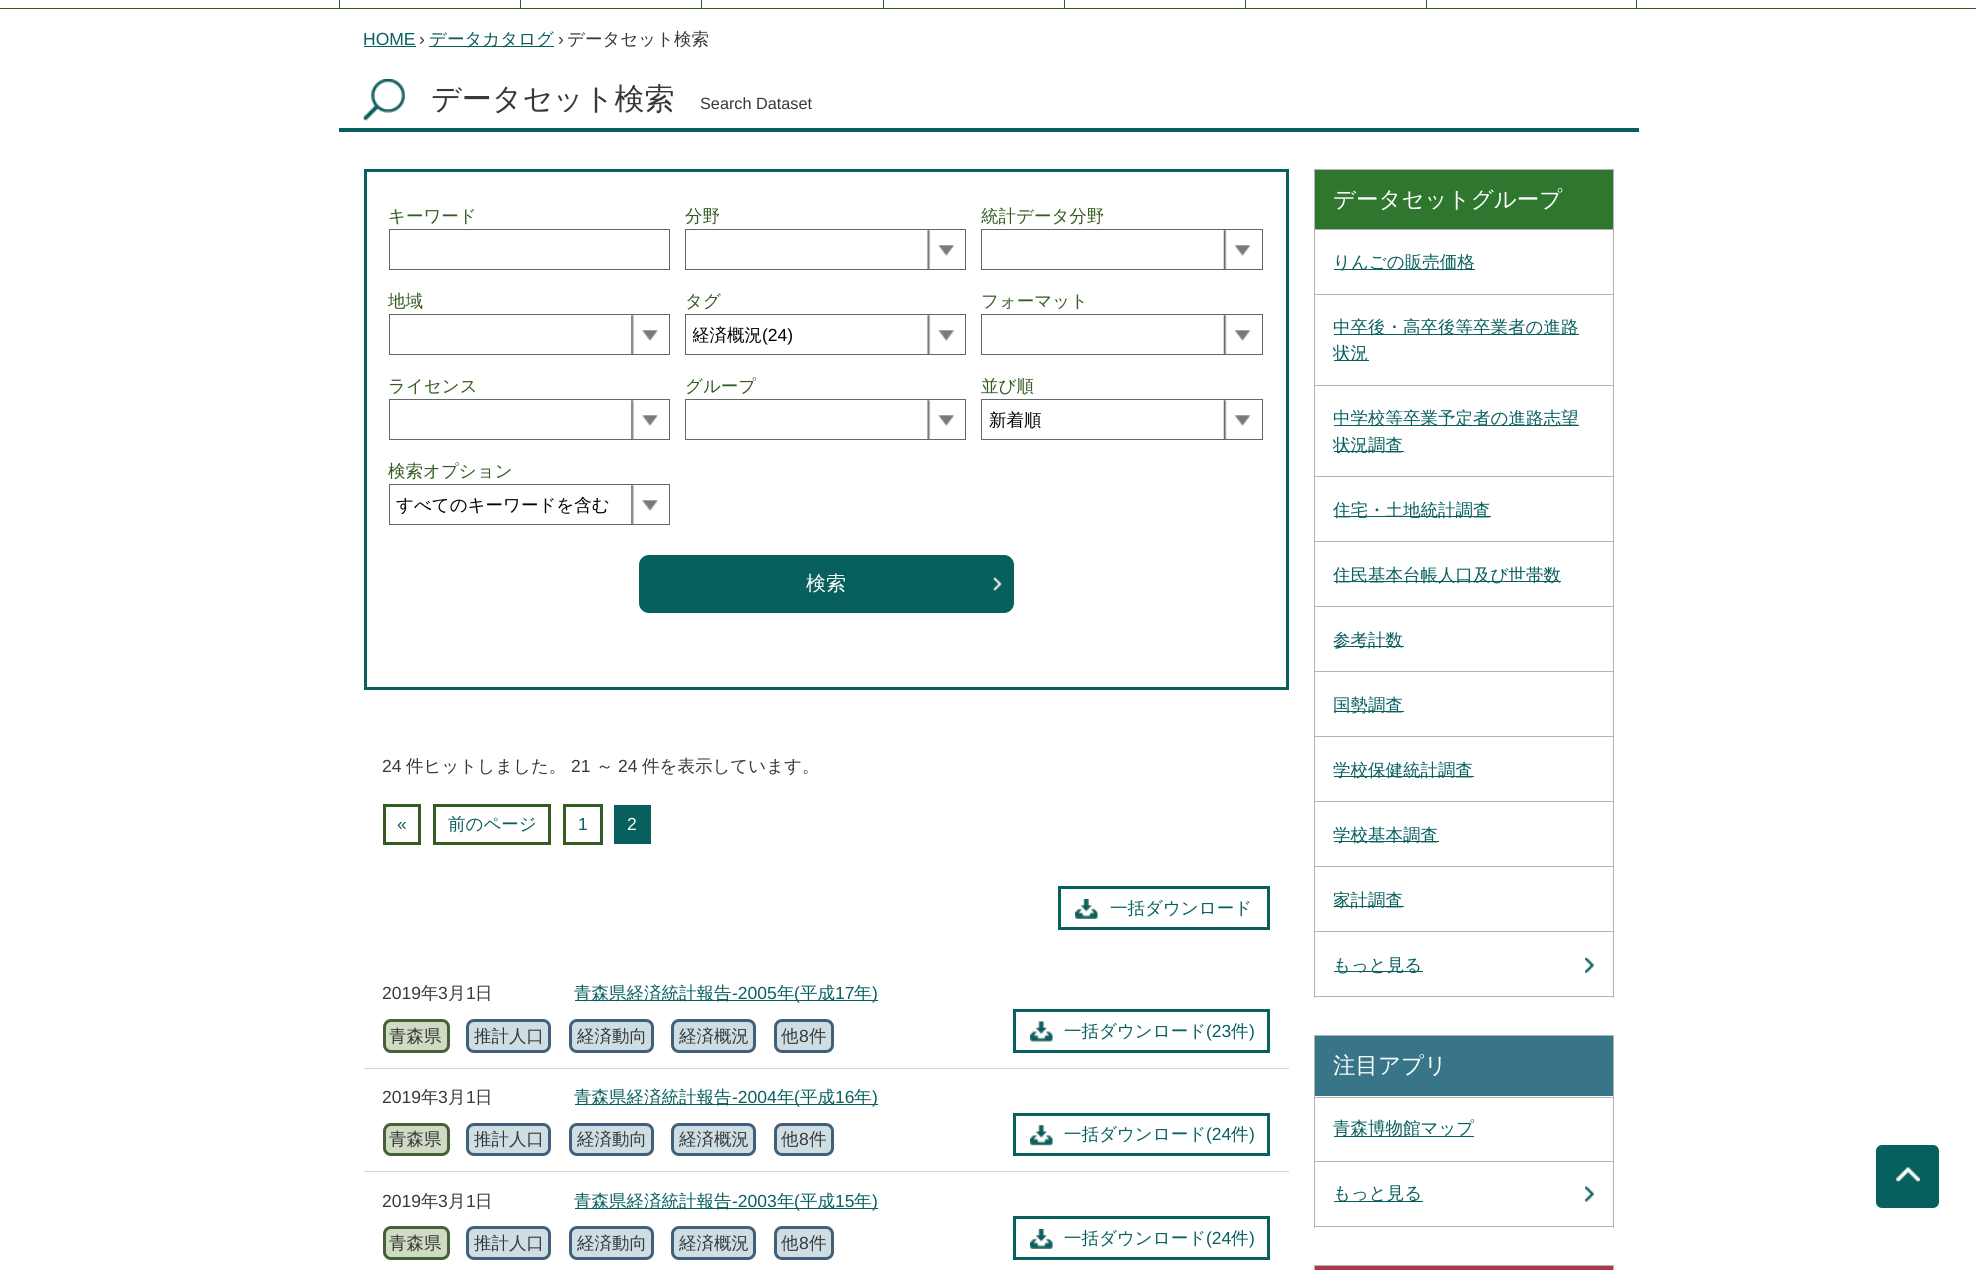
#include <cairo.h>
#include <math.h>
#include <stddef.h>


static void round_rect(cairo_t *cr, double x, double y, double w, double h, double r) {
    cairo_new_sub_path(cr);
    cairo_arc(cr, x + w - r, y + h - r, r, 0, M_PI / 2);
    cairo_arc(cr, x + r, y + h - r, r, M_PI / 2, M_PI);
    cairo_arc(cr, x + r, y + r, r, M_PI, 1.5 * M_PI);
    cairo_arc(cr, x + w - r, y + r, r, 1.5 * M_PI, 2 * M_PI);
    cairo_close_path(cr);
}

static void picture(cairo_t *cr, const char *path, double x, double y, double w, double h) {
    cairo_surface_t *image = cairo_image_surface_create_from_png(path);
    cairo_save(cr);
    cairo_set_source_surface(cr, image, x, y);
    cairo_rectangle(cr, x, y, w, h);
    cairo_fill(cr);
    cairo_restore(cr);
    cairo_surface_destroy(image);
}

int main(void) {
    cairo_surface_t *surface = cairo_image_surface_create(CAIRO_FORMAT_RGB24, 1976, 1270);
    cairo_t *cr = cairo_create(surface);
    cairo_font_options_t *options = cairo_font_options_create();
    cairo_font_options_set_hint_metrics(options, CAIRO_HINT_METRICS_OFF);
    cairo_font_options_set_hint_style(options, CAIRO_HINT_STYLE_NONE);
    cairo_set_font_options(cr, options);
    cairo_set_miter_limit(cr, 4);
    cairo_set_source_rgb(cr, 1, 1, 1);
    cairo_paint(cr);
    cairo_set_source_rgb(cr, 0.204, 0.357, 0.129);
    cairo_rectangle(cr, 0, 8, 1976, 1);
    cairo_fill(cr);
    cairo_rectangle(cr, 339, 0, 1, 8);
    cairo_fill(cr);
    cairo_rectangle(cr, 520, 0, 1, 8);
    cairo_fill(cr);
    cairo_rectangle(cr, 701, 0, 1, 8);
    cairo_fill(cr);
    cairo_rectangle(cr, 883, 0, 1, 8);
    cairo_fill(cr);
    cairo_rectangle(cr, 1064, 0, 1, 8);
    cairo_fill(cr);
    cairo_rectangle(cr, 1245, 0, 1, 8);
    cairo_fill(cr);
    cairo_rectangle(cr, 1636, 0, 1, 8);
    cairo_fill(cr);
    cairo_rectangle(cr, 1426, 0, 1, 8);
    cairo_fill(cr);
    cairo_select_font_face(cr, "Liberation Sans", CAIRO_FONT_SLANT_NORMAL, CAIRO_FONT_WEIGHT_NORMAL);
    cairo_set_font_size(cr, 17.5);
    cairo_set_source_rgb(cr, 0.031, 0.376, 0.369);
    cairo_move_to(cr, 363, 45);
    cairo_show_text(cr, "HOME");
    cairo_rectangle(cr, 364, 46, 52, 1);
    cairo_fill(cr);
    cairo_set_source_rgb(cr, 0.22, 0.22, 0.22);
    cairo_move_to(cr, 419, 45);
    cairo_show_text(cr, "›");
    cairo_set_source_rgb(cr, 0.031, 0.376, 0.369);
    cairo_rectangle(cr, 429, 46, 125, 1);
    cairo_fill(cr);
    cairo_select_font_face(cr, "WenQuanYi Zen Hei Medium", CAIRO_FONT_SLANT_NORMAL, CAIRO_FONT_WEIGHT_NORMAL);
    cairo_move_to(cr, 429, 45);
    cairo_show_text(cr, "データカタログ");
    cairo_select_font_face(cr, "Liberation Sans", CAIRO_FONT_SLANT_NORMAL, CAIRO_FONT_WEIGHT_NORMAL);
    cairo_set_source_rgb(cr, 0.22, 0.22, 0.22);
    cairo_move_to(cr, 558, 45);
    cairo_show_text(cr, "›");
    cairo_select_font_face(cr, "WenQuanYi Zen Hei Medium", CAIRO_FONT_SLANT_NORMAL, CAIRO_FONT_WEIGHT_NORMAL);
    cairo_move_to(cr, 567, 45);
    cairo_show_text(cr, "データセット検索");
    picture(cr, "img1.png", 363, 79, 42, 42);
    cairo_set_source_rgb(cr, 0.031, 0.376, 0.369);
    cairo_rectangle(cr, 339, 128, 1300, 4);
    cairo_fill(cr);
    cairo_set_font_size(cr, 30);
    cairo_set_source_rgb(cr, 0.22, 0.22, 0.22);
    cairo_move_to(cr, 431, 109);
    cairo_show_text(cr, "データセット検索");
    cairo_select_font_face(cr, "Liberation Sans", CAIRO_FONT_SLANT_NORMAL, CAIRO_FONT_WEIGHT_NORMAL);
    cairo_set_font_size(cr, 16.25);
    cairo_move_to(cr, 700, 109);
    cairo_show_text(cr, "Search Dataset");
    cairo_rectangle(cr, 365.5, 170.5, 922, 518);
    cairo_set_source_rgb(cr, 0.031, 0.376, 0.369);
    cairo_set_line_width(cr, 3);
    cairo_stroke(cr);
    cairo_select_font_face(cr, "WenQuanYi Zen Hei Medium", CAIRO_FONT_SLANT_NORMAL, CAIRO_FONT_WEIGHT_NORMAL);
    cairo_set_font_size(cr, 17.5);
    cairo_set_source_rgb(cr, 0.204, 0.357, 0.129);
    cairo_move_to(cr, 388, 222);
    cairo_show_text(cr, "キーワード");
    cairo_rectangle(cr, 389.5, 229.5, 280, 40);
    cairo_set_source_rgb(cr, 0.4, 0.4, 0.4);
    cairo_set_line_width(cr, 1);
    cairo_stroke(cr);
    cairo_set_source_rgb(cr, 0.204, 0.357, 0.129);
    cairo_move_to(cr, 685, 222);
    cairo_show_text(cr, "分野");
    picture(cr, "img2.png", 927, 230, 27, 39);
    cairo_rectangle(cr, 685.5, 229.5, 280, 40);
    cairo_set_source_rgb(cr, 0.4, 0.4, 0.4);
    cairo_stroke(cr);
    cairo_set_source_rgb(cr, 0.204, 0.357, 0.129);
    cairo_move_to(cr, 981, 222);
    cairo_show_text(cr, "統計データ分野");
    picture(cr, "img3.png", 1223, 230, 28, 39);
    cairo_rectangle(cr, 981.5, 229.5, 281, 40);
    cairo_set_source_rgb(cr, 0.4, 0.4, 0.4);
    cairo_stroke(cr);
    cairo_set_source_rgb(cr, 0.204, 0.357, 0.129);
    cairo_move_to(cr, 388, 307);
    cairo_show_text(cr, "地域");
    picture(cr, "img4.png", 631, 315, 27, 39);
    cairo_rectangle(cr, 389.5, 314.5, 280, 40);
    cairo_set_source_rgb(cr, 0.4, 0.4, 0.4);
    cairo_stroke(cr);
    cairo_set_source_rgb(cr, 0.204, 0.357, 0.129);
    cairo_move_to(cr, 685, 307);
    cairo_show_text(cr, "タグ");
    picture(cr, "img2.png", 927, 315, 27, 39);
    cairo_rectangle(cr, 685.5, 314.5, 280, 40);
    cairo_set_source_rgb(cr, 0.4, 0.4, 0.4);
    cairo_stroke(cr);
    cairo_save(cr);
    cairo_rectangle(cr, 693, 325, 236, 20);
    cairo_clip(cr);
    cairo_set_source_rgb(cr, 0, 0, 0);
    cairo_move_to(cr, 692, 341);
    cairo_show_text(cr, "経済概況");
    cairo_restore(cr);
    cairo_select_font_face(cr, "Liberation Sans", CAIRO_FONT_SLANT_NORMAL, CAIRO_FONT_WEIGHT_NORMAL);
    cairo_set_source_rgb(cr, 0, 0, 0);
    cairo_move_to(cr, 762, 341);
    cairo_show_text(cr, "(24)");
    cairo_select_font_face(cr, "WenQuanYi Zen Hei Medium", CAIRO_FONT_SLANT_NORMAL, CAIRO_FONT_WEIGHT_NORMAL);
    cairo_set_source_rgb(cr, 0.204, 0.357, 0.129);
    cairo_move_to(cr, 981, 307);
    cairo_show_text(cr, "フォーマット");
    picture(cr, "img3.png", 1223, 315, 28, 39);
    cairo_rectangle(cr, 981.5, 314.5, 281, 40);
    cairo_set_source_rgb(cr, 0.4, 0.4, 0.4);
    cairo_stroke(cr);
    cairo_set_source_rgb(cr, 0.204, 0.357, 0.129);
    cairo_move_to(cr, 388, 392);
    cairo_show_text(cr, "ライセンス");
    picture(cr, "img4.png", 631, 400, 27, 39);
    cairo_rectangle(cr, 389.5, 399.5, 280, 40);
    cairo_set_source_rgb(cr, 0.4, 0.4, 0.4);
    cairo_stroke(cr);
    cairo_set_source_rgb(cr, 0.204, 0.357, 0.129);
    cairo_move_to(cr, 685, 392);
    cairo_show_text(cr, "グループ");
    picture(cr, "img2.png", 927, 400, 27, 39);
    cairo_rectangle(cr, 685.5, 399.5, 280, 40);
    cairo_set_source_rgb(cr, 0.4, 0.4, 0.4);
    cairo_stroke(cr);
    cairo_set_source_rgb(cr, 0.204, 0.357, 0.129);
    cairo_move_to(cr, 981, 392);
    cairo_show_text(cr, "並び順");
    picture(cr, "img3.png", 1223, 400, 28, 39);
    cairo_rectangle(cr, 981.5, 399.5, 281, 40);
    cairo_set_source_rgb(cr, 0.4, 0.4, 0.4);
    cairo_stroke(cr);
    cairo_set_source_rgb(cr, 0, 0, 0);
    cairo_move_to(cr, 989, 426);
    cairo_show_text(cr, "新着順");
    cairo_set_source_rgb(cr, 0.204, 0.357, 0.129);
    cairo_move_to(cr, 388, 477);
    cairo_show_text(cr, "検索オプション");
    picture(cr, "img5.png", 631, 485, 27, 39);
    cairo_rectangle(cr, 389.5, 484.5, 280, 40);
    cairo_set_source_rgb(cr, 0.4, 0.4, 0.4);
    cairo_stroke(cr);
    cairo_set_source_rgb(cr, 0, 0, 0);
    cairo_move_to(cr, 396, 511);
    cairo_show_text(cr, "すべてのキーワードを含む");
    cairo_set_source_rgb(cr, 0.031, 0.376, 0.369);
    round_rect(cr, 639, 555, 375, 58, 10);
    cairo_fill(cr);
    picture(cr, "img6.png", 993, 577, 9, 14);
    cairo_set_font_size(cr, 20);
    cairo_set_source_rgb(cr, 1, 1, 1);
    cairo_move_to(cr, 806, 590);
    cairo_show_text(cr, "検索");
    cairo_select_font_face(cr, "Liberation Sans", CAIRO_FONT_SLANT_NORMAL, CAIRO_FONT_WEIGHT_NORMAL);
    cairo_set_font_size(cr, 17.5);
    cairo_set_source_rgb(cr, 0.22, 0.22, 0.22);
    cairo_move_to(cr, 382, 772);
    cairo_show_text(cr, "24");
    cairo_select_font_face(cr, "WenQuanYi Zen Hei Medium", CAIRO_FONT_SLANT_NORMAL, CAIRO_FONT_WEIGHT_NORMAL);
    cairo_move_to(cr, 406, 772);
    cairo_show_text(cr, "件ヒットしました。");
    cairo_select_font_face(cr, "Liberation Sans", CAIRO_FONT_SLANT_NORMAL, CAIRO_FONT_WEIGHT_NORMAL);
    cairo_move_to(cr, 571, 772);
    cairo_show_text(cr, "21");
    cairo_select_font_face(cr, "WenQuanYi Zen Hei Medium", CAIRO_FONT_SLANT_NORMAL, CAIRO_FONT_WEIGHT_NORMAL);
    cairo_move_to(cr, 596, 772);
    cairo_show_text(cr, "～");
    cairo_select_font_face(cr, "Liberation Sans", CAIRO_FONT_SLANT_NORMAL, CAIRO_FONT_WEIGHT_NORMAL);
    cairo_move_to(cr, 618, 772);
    cairo_show_text(cr, "24");
    cairo_select_font_face(cr, "WenQuanYi Zen Hei Medium", CAIRO_FONT_SLANT_NORMAL, CAIRO_FONT_WEIGHT_NORMAL);
    cairo_move_to(cr, 642, 772);
    cairo_show_text(cr, "件を表示しています。");
    cairo_rectangle(cr, 384.5, 805.5, 35, 38);
    cairo_set_source_rgb(cr, 0.204, 0.357, 0.129);
    cairo_set_line_width(cr, 3);
    cairo_stroke(cr);
    cairo_select_font_face(cr, "Liberation Sans", CAIRO_FONT_SLANT_NORMAL, CAIRO_FONT_WEIGHT_NORMAL);
    cairo_set_source_rgb(cr, 0.031, 0.376, 0.369);
    cairo_move_to(cr, 397, 830);
    cairo_show_text(cr, "«");
    cairo_rectangle(cr, 434.5, 805.5, 115, 38);
    cairo_set_source_rgb(cr, 0.204, 0.357, 0.129);
    cairo_stroke(cr);
    cairo_select_font_face(cr, "WenQuanYi Zen Hei Medium", CAIRO_FONT_SLANT_NORMAL, CAIRO_FONT_WEIGHT_NORMAL);
    cairo_set_source_rgb(cr, 0.031, 0.376, 0.369);
    cairo_move_to(cr, 448, 830);
    cairo_show_text(cr, "前のページ");
    cairo_rectangle(cr, 564.5, 805.5, 37, 38);
    cairo_set_source_rgb(cr, 0.204, 0.357, 0.129);
    cairo_stroke(cr);
    cairo_select_font_face(cr, "Liberation Sans", CAIRO_FONT_SLANT_NORMAL, CAIRO_FONT_WEIGHT_NORMAL);
    cairo_set_source_rgb(cr, 0.031, 0.376, 0.369);
    cairo_move_to(cr, 578, 830);
    cairo_show_text(cr, "1");
    cairo_rectangle(cr, 614, 805, 37, 39);
    cairo_fill(cr);
    cairo_set_source_rgb(cr, 1, 1, 1);
    cairo_move_to(cr, 627, 830);
    cairo_show_text(cr, "2");
    picture(cr, "img7.png", 1075, 899, 23, 20);
    cairo_rectangle(cr, 1059.5, 887.5, 209, 41);
    cairo_set_source_rgb(cr, 0.031, 0.376, 0.369);
    cairo_stroke(cr);
    cairo_select_font_face(cr, "WenQuanYi Zen Hei Medium", CAIRO_FONT_SLANT_NORMAL, CAIRO_FONT_WEIGHT_NORMAL);
    cairo_move_to(cr, 1110, 914);
    cairo_show_text(cr, "一括ダウンロード");
    cairo_set_source_rgb(cr, 0.835, 0.835, 0.835);
    cairo_rectangle(cr, 364, 1068, 925, 1);
    cairo_fill(cr);
    cairo_select_font_face(cr, "Liberation Sans", CAIRO_FONT_SLANT_NORMAL, CAIRO_FONT_WEIGHT_NORMAL);
    cairo_set_source_rgb(cr, 0.22, 0.22, 0.22);
    cairo_move_to(cr, 382, 999);
    cairo_show_text(cr, "2019");
    cairo_select_font_face(cr, "WenQuanYi Zen Hei Medium", CAIRO_FONT_SLANT_NORMAL, CAIRO_FONT_WEIGHT_NORMAL);
    cairo_move_to(cr, 421, 999);
    cairo_show_text(cr, "年");
    cairo_select_font_face(cr, "Liberation Sans", CAIRO_FONT_SLANT_NORMAL, CAIRO_FONT_WEIGHT_NORMAL);
    cairo_move_to(cr, 438, 999);
    cairo_show_text(cr, "3");
    cairo_select_font_face(cr, "WenQuanYi Zen Hei Medium", CAIRO_FONT_SLANT_NORMAL, CAIRO_FONT_WEIGHT_NORMAL);
    cairo_move_to(cr, 448, 999);
    cairo_show_text(cr, "月");
    cairo_select_font_face(cr, "Liberation Sans", CAIRO_FONT_SLANT_NORMAL, CAIRO_FONT_WEIGHT_NORMAL);
    cairo_move_to(cr, 466, 999);
    cairo_show_text(cr, "1");
    cairo_select_font_face(cr, "WenQuanYi Zen Hei Medium", CAIRO_FONT_SLANT_NORMAL, CAIRO_FONT_WEIGHT_NORMAL);
    cairo_move_to(cr, 475, 999);
    cairo_show_text(cr, "日");
    cairo_set_source_rgb(cr, 0.031, 0.376, 0.369);
    cairo_rectangle(cr, 575, 1000, 303, 1);
    cairo_fill(cr);
    cairo_move_to(cr, 574, 999);
    cairo_show_text(cr, "青森県経済統計報告");
    cairo_select_font_face(cr, "Liberation Sans", CAIRO_FONT_SLANT_NORMAL, CAIRO_FONT_WEIGHT_NORMAL);
    cairo_move_to(cr, 732, 999);
    cairo_show_text(cr, "-2005");
    cairo_select_font_face(cr, "WenQuanYi Zen Hei Medium", CAIRO_FONT_SLANT_NORMAL, CAIRO_FONT_WEIGHT_NORMAL);
    cairo_move_to(cr, 777, 999);
    cairo_show_text(cr, "年");
    cairo_select_font_face(cr, "Liberation Sans", CAIRO_FONT_SLANT_NORMAL, CAIRO_FONT_WEIGHT_NORMAL);
    cairo_move_to(cr, 794, 999);
    cairo_show_text(cr, "(");
    cairo_select_font_face(cr, "WenQuanYi Zen Hei Medium", CAIRO_FONT_SLANT_NORMAL, CAIRO_FONT_WEIGHT_NORMAL);
    cairo_move_to(cr, 800, 999);
    cairo_show_text(cr, "平成");
    cairo_select_font_face(cr, "Liberation Sans", CAIRO_FONT_SLANT_NORMAL, CAIRO_FONT_WEIGHT_NORMAL);
    cairo_move_to(cr, 835, 999);
    cairo_show_text(cr, "17");
    cairo_select_font_face(cr, "WenQuanYi Zen Hei Medium", CAIRO_FONT_SLANT_NORMAL, CAIRO_FONT_WEIGHT_NORMAL);
    cairo_move_to(cr, 854, 999);
    cairo_show_text(cr, "年");
    cairo_select_font_face(cr, "Liberation Sans", CAIRO_FONT_SLANT_NORMAL, CAIRO_FONT_WEIGHT_NORMAL);
    cairo_move_to(cr, 872, 999);
    cairo_show_text(cr, ")");
    picture(cr, "img8.png", 1030, 1021, 23, 21);
    cairo_rectangle(cr, 1014.5, 1010.5, 254, 41);
    cairo_stroke(cr);
    cairo_select_font_face(cr, "WenQuanYi Zen Hei Medium", CAIRO_FONT_SLANT_NORMAL, CAIRO_FONT_WEIGHT_NORMAL);
    cairo_move_to(cr, 1064, 1037);
    cairo_show_text(cr, "一括ダウンロード");
    cairo_select_font_face(cr, "Liberation Sans", CAIRO_FONT_SLANT_NORMAL, CAIRO_FONT_WEIGHT_NORMAL);
    cairo_move_to(cr, 1206, 1037);
    cairo_show_text(cr, "(23");
    cairo_select_font_face(cr, "WenQuanYi Zen Hei Medium", CAIRO_FONT_SLANT_NORMAL, CAIRO_FONT_WEIGHT_NORMAL);
    cairo_move_to(cr, 1231, 1037);
    cairo_show_text(cr, "件");
    cairo_select_font_face(cr, "Liberation Sans", CAIRO_FONT_SLANT_NORMAL, CAIRO_FONT_WEIGHT_NORMAL);
    cairo_move_to(cr, 1249, 1037);
    cairo_show_text(cr, ")");
    cairo_set_source_rgb(cr, 0.812, 0.859, 0.765);
    round_rect(cr, 384.5, 1020.5, 64, 31, 6.5);
    cairo_fill_preserve(cr);
    cairo_set_source_rgb(cr, 0.275, 0.376, 0.22);
    cairo_stroke(cr);
    cairo_select_font_face(cr, "WenQuanYi Zen Hei Medium", CAIRO_FONT_SLANT_NORMAL, CAIRO_FONT_WEIGHT_NORMAL);
    cairo_set_source_rgb(cr, 0.22, 0.22, 0.22);
    cairo_move_to(cr, 389, 1042);
    cairo_show_text(cr, "青森県");
    cairo_set_source_rgb(cr, 0.812, 0.871, 0.89);
    round_rect(cr, 467.5, 1020.5, 82, 31, 6.5);
    cairo_fill_preserve(cr);
    cairo_set_source_rgb(cr, 0.255, 0.376, 0.478);
    cairo_stroke(cr);
    cairo_set_source_rgb(cr, 0.22, 0.22, 0.22);
    cairo_move_to(cr, 474, 1042);
    cairo_show_text(cr, "推計人口");
    cairo_set_source_rgb(cr, 0.812, 0.871, 0.89);
    round_rect(cr, 570.5, 1020.5, 82, 31, 6.5);
    cairo_fill_preserve(cr);
    cairo_set_source_rgb(cr, 0.255, 0.376, 0.478);
    cairo_stroke(cr);
    cairo_set_source_rgb(cr, 0.22, 0.22, 0.22);
    cairo_move_to(cr, 577, 1042);
    cairo_show_text(cr, "経済動向");
    cairo_set_source_rgb(cr, 0.812, 0.871, 0.89);
    round_rect(cr, 672.5, 1020.5, 82, 31, 6.5);
    cairo_fill_preserve(cr);
    cairo_set_source_rgb(cr, 0.255, 0.376, 0.478);
    cairo_stroke(cr);
    cairo_set_source_rgb(cr, 0.22, 0.22, 0.22);
    cairo_move_to(cr, 679, 1042);
    cairo_show_text(cr, "経済概況");
    cairo_set_source_rgb(cr, 0.812, 0.871, 0.89);
    round_rect(cr, 775.5, 1020.5, 57, 31, 6.5);
    cairo_fill_preserve(cr);
    cairo_set_source_rgb(cr, 0.255, 0.376, 0.478);
    cairo_stroke(cr);
    cairo_set_source_rgb(cr, 0.22, 0.22, 0.22);
    cairo_move_to(cr, 781, 1042);
    cairo_show_text(cr, "他");
    cairo_select_font_face(cr, "Liberation Sans", CAIRO_FONT_SLANT_NORMAL, CAIRO_FONT_WEIGHT_NORMAL);
    cairo_move_to(cr, 799, 1042);
    cairo_show_text(cr, "8");
    cairo_select_font_face(cr, "WenQuanYi Zen Hei Medium", CAIRO_FONT_SLANT_NORMAL, CAIRO_FONT_WEIGHT_NORMAL);
    cairo_move_to(cr, 809, 1042);
    cairo_show_text(cr, "件");
    cairo_set_source_rgb(cr, 0.835, 0.835, 0.835);
    cairo_rectangle(cr, 364, 1171, 925, 1);
    cairo_fill(cr);
    cairo_select_font_face(cr, "Liberation Sans", CAIRO_FONT_SLANT_NORMAL, CAIRO_FONT_WEIGHT_NORMAL);
    cairo_set_source_rgb(cr, 0.22, 0.22, 0.22);
    cairo_move_to(cr, 382, 1103);
    cairo_show_text(cr, "2019");
    cairo_select_font_face(cr, "WenQuanYi Zen Hei Medium", CAIRO_FONT_SLANT_NORMAL, CAIRO_FONT_WEIGHT_NORMAL);
    cairo_move_to(cr, 421, 1103);
    cairo_show_text(cr, "年");
    cairo_select_font_face(cr, "Liberation Sans", CAIRO_FONT_SLANT_NORMAL, CAIRO_FONT_WEIGHT_NORMAL);
    cairo_move_to(cr, 438, 1103);
    cairo_show_text(cr, "3");
    cairo_select_font_face(cr, "WenQuanYi Zen Hei Medium", CAIRO_FONT_SLANT_NORMAL, CAIRO_FONT_WEIGHT_NORMAL);
    cairo_move_to(cr, 448, 1103);
    cairo_show_text(cr, "月");
    cairo_select_font_face(cr, "Liberation Sans", CAIRO_FONT_SLANT_NORMAL, CAIRO_FONT_WEIGHT_NORMAL);
    cairo_move_to(cr, 466, 1103);
    cairo_show_text(cr, "1");
    cairo_select_font_face(cr, "WenQuanYi Zen Hei Medium", CAIRO_FONT_SLANT_NORMAL, CAIRO_FONT_WEIGHT_NORMAL);
    cairo_move_to(cr, 475, 1103);
    cairo_show_text(cr, "日");
    cairo_set_source_rgb(cr, 0.031, 0.376, 0.369);
    cairo_rectangle(cr, 575, 1104, 303, 1);
    cairo_fill(cr);
    cairo_move_to(cr, 574, 1103);
    cairo_show_text(cr, "青森県経済統計報告");
    cairo_select_font_face(cr, "Liberation Sans", CAIRO_FONT_SLANT_NORMAL, CAIRO_FONT_WEIGHT_NORMAL);
    cairo_move_to(cr, 732, 1103);
    cairo_show_text(cr, "-2004");
    cairo_select_font_face(cr, "WenQuanYi Zen Hei Medium", CAIRO_FONT_SLANT_NORMAL, CAIRO_FONT_WEIGHT_NORMAL);
    cairo_move_to(cr, 777, 1103);
    cairo_show_text(cr, "年");
    cairo_select_font_face(cr, "Liberation Sans", CAIRO_FONT_SLANT_NORMAL, CAIRO_FONT_WEIGHT_NORMAL);
    cairo_move_to(cr, 794, 1103);
    cairo_show_text(cr, "(");
    cairo_select_font_face(cr, "WenQuanYi Zen Hei Medium", CAIRO_FONT_SLANT_NORMAL, CAIRO_FONT_WEIGHT_NORMAL);
    cairo_move_to(cr, 800, 1103);
    cairo_show_text(cr, "平成");
    cairo_select_font_face(cr, "Liberation Sans", CAIRO_FONT_SLANT_NORMAL, CAIRO_FONT_WEIGHT_NORMAL);
    cairo_move_to(cr, 835, 1103);
    cairo_show_text(cr, "16");
    cairo_select_font_face(cr, "WenQuanYi Zen Hei Medium", CAIRO_FONT_SLANT_NORMAL, CAIRO_FONT_WEIGHT_NORMAL);
    cairo_move_to(cr, 854, 1103);
    cairo_show_text(cr, "年");
    cairo_select_font_face(cr, "Liberation Sans", CAIRO_FONT_SLANT_NORMAL, CAIRO_FONT_WEIGHT_NORMAL);
    cairo_move_to(cr, 872, 1103);
    cairo_show_text(cr, ")");
    picture(cr, "img9.png", 1030, 1125, 23, 21);
    cairo_rectangle(cr, 1014.5, 1114.5, 254, 40);
    cairo_stroke(cr);
    cairo_select_font_face(cr, "WenQuanYi Zen Hei Medium", CAIRO_FONT_SLANT_NORMAL, CAIRO_FONT_WEIGHT_NORMAL);
    cairo_move_to(cr, 1064, 1140);
    cairo_show_text(cr, "一括ダウンロード");
    cairo_select_font_face(cr, "Liberation Sans", CAIRO_FONT_SLANT_NORMAL, CAIRO_FONT_WEIGHT_NORMAL);
    cairo_move_to(cr, 1206, 1140);
    cairo_show_text(cr, "(24");
    cairo_select_font_face(cr, "WenQuanYi Zen Hei Medium", CAIRO_FONT_SLANT_NORMAL, CAIRO_FONT_WEIGHT_NORMAL);
    cairo_move_to(cr, 1231, 1140);
    cairo_show_text(cr, "件");
    cairo_select_font_face(cr, "Liberation Sans", CAIRO_FONT_SLANT_NORMAL, CAIRO_FONT_WEIGHT_NORMAL);
    cairo_move_to(cr, 1249, 1140);
    cairo_show_text(cr, ")");
    cairo_set_source_rgb(cr, 0.812, 0.859, 0.765);
    round_rect(cr, 384.5, 1124.5, 64, 30, 6.5);
    cairo_fill_preserve(cr);
    cairo_set_source_rgb(cr, 0.275, 0.376, 0.22);
    cairo_stroke(cr);
    cairo_select_font_face(cr, "WenQuanYi Zen Hei Medium", CAIRO_FONT_SLANT_NORMAL, CAIRO_FONT_WEIGHT_NORMAL);
    cairo_set_source_rgb(cr, 0.22, 0.22, 0.22);
    cairo_move_to(cr, 389, 1145);
    cairo_show_text(cr, "青森県");
    cairo_set_source_rgb(cr, 0.812, 0.871, 0.89);
    round_rect(cr, 467.5, 1124.5, 82, 30, 6.5);
    cairo_fill_preserve(cr);
    cairo_set_source_rgb(cr, 0.255, 0.376, 0.478);
    cairo_stroke(cr);
    cairo_set_source_rgb(cr, 0.22, 0.22, 0.22);
    cairo_move_to(cr, 474, 1145);
    cairo_show_text(cr, "推計人口");
    cairo_set_source_rgb(cr, 0.812, 0.871, 0.89);
    round_rect(cr, 570.5, 1124.5, 82, 30, 6.5);
    cairo_fill_preserve(cr);
    cairo_set_source_rgb(cr, 0.255, 0.376, 0.478);
    cairo_stroke(cr);
    cairo_set_source_rgb(cr, 0.22, 0.22, 0.22);
    cairo_move_to(cr, 577, 1145);
    cairo_show_text(cr, "経済動向");
    cairo_set_source_rgb(cr, 0.812, 0.871, 0.89);
    round_rect(cr, 672.5, 1124.5, 82, 30, 6.5);
    cairo_fill_preserve(cr);
    cairo_set_source_rgb(cr, 0.255, 0.376, 0.478);
    cairo_stroke(cr);
    cairo_set_source_rgb(cr, 0.22, 0.22, 0.22);
    cairo_move_to(cr, 679, 1145);
    cairo_show_text(cr, "経済概況");
    cairo_set_source_rgb(cr, 0.812, 0.871, 0.89);
    round_rect(cr, 775.5, 1124.5, 57, 30, 6.5);
    cairo_fill_preserve(cr);
    cairo_set_source_rgb(cr, 0.255, 0.376, 0.478);
    cairo_stroke(cr);
    cairo_set_source_rgb(cr, 0.22, 0.22, 0.22);
    cairo_move_to(cr, 781, 1145);
    cairo_show_text(cr, "他");
    cairo_select_font_face(cr, "Liberation Sans", CAIRO_FONT_SLANT_NORMAL, CAIRO_FONT_WEIGHT_NORMAL);
    cairo_move_to(cr, 799, 1145);
    cairo_show_text(cr, "8");
    cairo_select_font_face(cr, "WenQuanYi Zen Hei Medium", CAIRO_FONT_SLANT_NORMAL, CAIRO_FONT_WEIGHT_NORMAL);
    cairo_move_to(cr, 809, 1145);
    cairo_show_text(cr, "件");
    cairo_select_font_face(cr, "Liberation Sans", CAIRO_FONT_SLANT_NORMAL, CAIRO_FONT_WEIGHT_NORMAL);
    cairo_move_to(cr, 382, 1207);
    cairo_show_text(cr, "2019");
    cairo_select_font_face(cr, "WenQuanYi Zen Hei Medium", CAIRO_FONT_SLANT_NORMAL, CAIRO_FONT_WEIGHT_NORMAL);
    cairo_move_to(cr, 421, 1207);
    cairo_show_text(cr, "年");
    cairo_select_font_face(cr, "Liberation Sans", CAIRO_FONT_SLANT_NORMAL, CAIRO_FONT_WEIGHT_NORMAL);
    cairo_move_to(cr, 438, 1207);
    cairo_show_text(cr, "3");
    cairo_select_font_face(cr, "WenQuanYi Zen Hei Medium", CAIRO_FONT_SLANT_NORMAL, CAIRO_FONT_WEIGHT_NORMAL);
    cairo_move_to(cr, 448, 1207);
    cairo_show_text(cr, "月");
    cairo_select_font_face(cr, "Liberation Sans", CAIRO_FONT_SLANT_NORMAL, CAIRO_FONT_WEIGHT_NORMAL);
    cairo_move_to(cr, 466, 1207);
    cairo_show_text(cr, "1");
    cairo_select_font_face(cr, "WenQuanYi Zen Hei Medium", CAIRO_FONT_SLANT_NORMAL, CAIRO_FONT_WEIGHT_NORMAL);
    cairo_move_to(cr, 475, 1207);
    cairo_show_text(cr, "日");
    cairo_set_source_rgb(cr, 0.031, 0.376, 0.369);
    cairo_rectangle(cr, 575, 1208, 303, 1);
    cairo_fill(cr);
    cairo_move_to(cr, 574, 1207);
    cairo_show_text(cr, "青森県経済統計報告");
    cairo_select_font_face(cr, "Liberation Sans", CAIRO_FONT_SLANT_NORMAL, CAIRO_FONT_WEIGHT_NORMAL);
    cairo_move_to(cr, 732, 1207);
    cairo_show_text(cr, "-2003");
    cairo_select_font_face(cr, "WenQuanYi Zen Hei Medium", CAIRO_FONT_SLANT_NORMAL, CAIRO_FONT_WEIGHT_NORMAL);
    cairo_move_to(cr, 777, 1207);
    cairo_show_text(cr, "年");
    cairo_select_font_face(cr, "Liberation Sans", CAIRO_FONT_SLANT_NORMAL, CAIRO_FONT_WEIGHT_NORMAL);
    cairo_move_to(cr, 794, 1207);
    cairo_show_text(cr, "(");
    cairo_select_font_face(cr, "WenQuanYi Zen Hei Medium", CAIRO_FONT_SLANT_NORMAL, CAIRO_FONT_WEIGHT_NORMAL);
    cairo_move_to(cr, 800, 1207);
    cairo_show_text(cr, "平成");
    cairo_select_font_face(cr, "Liberation Sans", CAIRO_FONT_SLANT_NORMAL, CAIRO_FONT_WEIGHT_NORMAL);
    cairo_move_to(cr, 835, 1207);
    cairo_show_text(cr, "15");
    cairo_select_font_face(cr, "WenQuanYi Zen Hei Medium", CAIRO_FONT_SLANT_NORMAL, CAIRO_FONT_WEIGHT_NORMAL);
    cairo_move_to(cr, 854, 1207);
    cairo_show_text(cr, "年");
    cairo_select_font_face(cr, "Liberation Sans", CAIRO_FONT_SLANT_NORMAL, CAIRO_FONT_WEIGHT_NORMAL);
    cairo_move_to(cr, 872, 1207);
    cairo_show_text(cr, ")");
    picture(cr, "img7.png", 1030, 1229, 23, 20);
    cairo_rectangle(cr, 1014.5, 1217.5, 254, 41);
    cairo_stroke(cr);
    cairo_select_font_face(cr, "WenQuanYi Zen Hei Medium", CAIRO_FONT_SLANT_NORMAL, CAIRO_FONT_WEIGHT_NORMAL);
    cairo_move_to(cr, 1064, 1244);
    cairo_show_text(cr, "一括ダウンロード");
    cairo_select_font_face(cr, "Liberation Sans", CAIRO_FONT_SLANT_NORMAL, CAIRO_FONT_WEIGHT_NORMAL);
    cairo_move_to(cr, 1206, 1244);
    cairo_show_text(cr, "(24");
    cairo_select_font_face(cr, "WenQuanYi Zen Hei Medium", CAIRO_FONT_SLANT_NORMAL, CAIRO_FONT_WEIGHT_NORMAL);
    cairo_move_to(cr, 1231, 1244);
    cairo_show_text(cr, "件");
    cairo_select_font_face(cr, "Liberation Sans", CAIRO_FONT_SLANT_NORMAL, CAIRO_FONT_WEIGHT_NORMAL);
    cairo_move_to(cr, 1249, 1244);
    cairo_show_text(cr, ")");
    cairo_set_source_rgb(cr, 0.812, 0.859, 0.765);
    round_rect(cr, 384.5, 1227.5, 64, 31, 6.5);
    cairo_fill_preserve(cr);
    cairo_set_source_rgb(cr, 0.275, 0.376, 0.22);
    cairo_stroke(cr);
    cairo_select_font_face(cr, "WenQuanYi Zen Hei Medium", CAIRO_FONT_SLANT_NORMAL, CAIRO_FONT_WEIGHT_NORMAL);
    cairo_set_source_rgb(cr, 0.22, 0.22, 0.22);
    cairo_move_to(cr, 389, 1249);
    cairo_show_text(cr, "青森県");
    cairo_set_source_rgb(cr, 0.812, 0.871, 0.89);
    round_rect(cr, 467.5, 1227.5, 82, 31, 6.5);
    cairo_fill_preserve(cr);
    cairo_set_source_rgb(cr, 0.255, 0.376, 0.478);
    cairo_stroke(cr);
    cairo_set_source_rgb(cr, 0.22, 0.22, 0.22);
    cairo_move_to(cr, 474, 1249);
    cairo_show_text(cr, "推計人口");
    cairo_set_source_rgb(cr, 0.812, 0.871, 0.89);
    round_rect(cr, 570.5, 1227.5, 82, 31, 6.5);
    cairo_fill_preserve(cr);
    cairo_set_source_rgb(cr, 0.255, 0.376, 0.478);
    cairo_stroke(cr);
    cairo_set_source_rgb(cr, 0.22, 0.22, 0.22);
    cairo_move_to(cr, 577, 1249);
    cairo_show_text(cr, "経済動向");
    cairo_set_source_rgb(cr, 0.812, 0.871, 0.89);
    round_rect(cr, 672.5, 1227.5, 82, 31, 6.5);
    cairo_fill_preserve(cr);
    cairo_set_source_rgb(cr, 0.255, 0.376, 0.478);
    cairo_stroke(cr);
    cairo_set_source_rgb(cr, 0.22, 0.22, 0.22);
    cairo_move_to(cr, 679, 1249);
    cairo_show_text(cr, "経済概況");
    cairo_set_source_rgb(cr, 0.812, 0.871, 0.89);
    round_rect(cr, 775.5, 1227.5, 57, 31, 6.5);
    cairo_fill_preserve(cr);
    cairo_set_source_rgb(cr, 0.255, 0.376, 0.478);
    cairo_stroke(cr);
    cairo_set_source_rgb(cr, 0.22, 0.22, 0.22);
    cairo_move_to(cr, 781, 1249);
    cairo_show_text(cr, "他");
    cairo_select_font_face(cr, "Liberation Sans", CAIRO_FONT_SLANT_NORMAL, CAIRO_FONT_WEIGHT_NORMAL);
    cairo_move_to(cr, 799, 1249);
    cairo_show_text(cr, "8");
    cairo_select_font_face(cr, "WenQuanYi Zen Hei Medium", CAIRO_FONT_SLANT_NORMAL, CAIRO_FONT_WEIGHT_NORMAL);
    cairo_move_to(cr, 809, 1249);
    cairo_show_text(cr, "件");
    cairo_rectangle(cr, 1314.5, 169.5, 299, 60);
    cairo_set_source_rgb(cr, 0.702, 0.702, 0.702);
    cairo_set_line_width(cr, 1);
    cairo_stroke(cr);
    cairo_set_source_rgb(cr, 0.184, 0.467, 0.184);
    cairo_rectangle(cr, 1315, 170, 298, 59);
    cairo_fill(cr);
    cairo_set_font_size(cr, 22.5);
    cairo_set_source_rgb(cr, 1, 1, 1);
    cairo_move_to(cr, 1333, 207);
    cairo_show_text(cr, "データセットグループ");
    cairo_set_source_rgb(cr, 0.702, 0.702, 0.702);
    cairo_rectangle(cr, 1613, 230, 1, 768);
    cairo_fill(cr);
    cairo_rectangle(cr, 1314, 230, 1, 703);
    cairo_fill(cr);
    cairo_rectangle(cr, 1315, 294, 298, 1);
    cairo_fill(cr);
    cairo_set_source_rgb(cr, 0.031, 0.376, 0.369);
    cairo_rectangle(cr, 1334, 269, 141, 1);
    cairo_fill(cr);
    cairo_set_font_size(cr, 17.5);
    cairo_move_to(cr, 1333, 268);
    cairo_show_text(cr, "りんごの販売価格");
    cairo_set_source_rgb(cr, 0.702, 0.702, 0.702);
    cairo_rectangle(cr, 1315, 385, 298, 1);
    cairo_fill(cr);
    cairo_set_source_rgb(cr, 0.031, 0.376, 0.369);
    cairo_rectangle(cr, 1334, 334, 245, 1);
    cairo_fill(cr);
    cairo_move_to(cr, 1333, 333);
    cairo_show_text(cr, "中卒後・高卒後等卒業者の進路");
    cairo_rectangle(cr, 1334, 360, 35, 1);
    cairo_fill(cr);
    cairo_move_to(cr, 1333, 359);
    cairo_show_text(cr, "状況");
    cairo_set_source_rgb(cr, 0.702, 0.702, 0.702);
    cairo_rectangle(cr, 1315, 476, 298, 1);
    cairo_fill(cr);
    cairo_set_source_rgb(cr, 0.031, 0.376, 0.369);
    cairo_rectangle(cr, 1334, 425, 245, 1);
    cairo_fill(cr);
    cairo_move_to(cr, 1333, 424);
    cairo_show_text(cr, "中学校等卒業予定者の進路志望");
    cairo_rectangle(cr, 1334, 451, 70, 1);
    cairo_fill(cr);
    cairo_move_to(cr, 1333, 451);
    cairo_show_text(cr, "状況調査");
    cairo_set_source_rgb(cr, 0.702, 0.702, 0.702);
    cairo_rectangle(cr, 1315, 541, 298, 1);
    cairo_fill(cr);
    cairo_set_source_rgb(cr, 0.031, 0.376, 0.369);
    cairo_rectangle(cr, 1334, 516, 157, 1);
    cairo_fill(cr);
    cairo_move_to(cr, 1333, 516);
    cairo_show_text(cr, "住宅・土地統計調査");
    cairo_set_source_rgb(cr, 0.702, 0.702, 0.702);
    cairo_rectangle(cr, 1315, 606, 298, 1);
    cairo_fill(cr);
    cairo_set_source_rgb(cr, 0.031, 0.376, 0.369);
    cairo_rectangle(cr, 1334, 581, 227, 1);
    cairo_fill(cr);
    cairo_move_to(cr, 1333, 581);
    cairo_show_text(cr, "住民基本台帳人口及び世帯数");
    cairo_set_source_rgb(cr, 0.702, 0.702, 0.702);
    cairo_rectangle(cr, 1315, 671, 298, 1);
    cairo_fill(cr);
    cairo_set_source_rgb(cr, 0.031, 0.376, 0.369);
    cairo_rectangle(cr, 1334, 646, 70, 1);
    cairo_fill(cr);
    cairo_move_to(cr, 1333, 646);
    cairo_show_text(cr, "参考計数");
    cairo_set_source_rgb(cr, 0.702, 0.702, 0.702);
    cairo_rectangle(cr, 1315, 736, 298, 1);
    cairo_fill(cr);
    cairo_set_source_rgb(cr, 0.031, 0.376, 0.369);
    cairo_rectangle(cr, 1334, 711, 70, 1);
    cairo_fill(cr);
    cairo_move_to(cr, 1333, 711);
    cairo_show_text(cr, "国勢調査");
    cairo_set_source_rgb(cr, 0.702, 0.702, 0.702);
    cairo_rectangle(cr, 1315, 801, 298, 1);
    cairo_fill(cr);
    cairo_set_source_rgb(cr, 0.031, 0.376, 0.369);
    cairo_rectangle(cr, 1334, 776, 140, 1);
    cairo_fill(cr);
    cairo_move_to(cr, 1333, 776);
    cairo_show_text(cr, "学校保健統計調査");
    cairo_set_source_rgb(cr, 0.702, 0.702, 0.702);
    cairo_rectangle(cr, 1315, 866, 298, 1);
    cairo_fill(cr);
    cairo_set_source_rgb(cr, 0.031, 0.376, 0.369);
    cairo_rectangle(cr, 1334, 841, 105, 1);
    cairo_fill(cr);
    cairo_move_to(cr, 1333, 841);
    cairo_show_text(cr, "学校基本調査");
    cairo_set_source_rgb(cr, 0.702, 0.702, 0.702);
    cairo_rectangle(cr, 1315, 931, 298, 1);
    cairo_fill(cr);
    cairo_set_source_rgb(cr, 0.031, 0.376, 0.369);
    cairo_rectangle(cr, 1334, 906, 70, 1);
    cairo_fill(cr);
    cairo_move_to(cr, 1333, 906);
    cairo_show_text(cr, "家計調査");
    picture(cr, "img10.png", 1585, 957, 9, 16);
    cairo_set_source_rgb(cr, 0.702, 0.702, 0.702);
    cairo_rectangle(cr, 1314, 996, 300, 1);
    cairo_fill(cr);
    cairo_rectangle(cr, 1314, 933, 1, 65);
    cairo_fill(cr);
    cairo_set_source_rgb(cr, 0.031, 0.376, 0.369);
    cairo_rectangle(cr, 1334, 971, 89, 1);
    cairo_fill(cr);
    cairo_move_to(cr, 1333, 971);
    cairo_show_text(cr, "もっと見る");
    cairo_rectangle(cr, 1314.5, 1035.5, 299, 62);
    cairo_set_source_rgb(cr, 0.702, 0.702, 0.702);
    cairo_stroke(cr);
    cairo_set_source_rgb(cr, 0.22, 0.459, 0.533);
    cairo_rectangle(cr, 1315, 1036, 298, 60);
    cairo_fill(cr);
    cairo_set_font_size(cr, 22.5);
    cairo_set_source_rgb(cr, 1, 1, 1);
    cairo_move_to(cr, 1333, 1073);
    cairo_show_text(cr, "注目アプリ");
    cairo_set_source_rgb(cr, 0.702, 0.702, 0.702);
    cairo_rectangle(cr, 1613, 1098, 1, 130);
    cairo_fill(cr);
    cairo_rectangle(cr, 1314, 1098, 1, 65);
    cairo_fill(cr);
    cairo_rectangle(cr, 1315, 1161, 298, 1);
    cairo_fill(cr);
    cairo_set_source_rgb(cr, 0.031, 0.376, 0.369);
    cairo_rectangle(cr, 1334, 1136, 140, 1);
    cairo_fill(cr);
    cairo_set_font_size(cr, 17.5);
    cairo_move_to(cr, 1333, 1134);
    cairo_show_text(cr, "青森博物館マップ");
    picture(cr, "img11.png", 1585, 1186, 9, 16);
    cairo_set_source_rgb(cr, 0.702, 0.702, 0.702);
    cairo_rectangle(cr, 1314, 1226, 300, 1);
    cairo_fill(cr);
    cairo_rectangle(cr, 1314, 1163, 1, 65);
    cairo_fill(cr);
    cairo_set_source_rgb(cr, 0.031, 0.376, 0.369);
    cairo_rectangle(cr, 1334, 1201, 89, 1);
    cairo_fill(cr);
    cairo_move_to(cr, 1333, 1199);
    cairo_show_text(cr, "もっと見る");
    cairo_rectangle(cr, 1314.5, 1265.5, 299, 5);
    cairo_set_source_rgb(cr, 0.702, 0.702, 0.702);
    cairo_stroke(cr);
    cairo_set_source_rgb(cr, 0.675, 0.22, 0.314);
    cairo_rectangle(cr, 1315, 1266, 298, 4);
    cairo_fill(cr);
    cairo_set_source_rgb(cr, 0.031, 0.376, 0.369);
    round_rect(cr, 1876, 1145, 63, 63, 6);
    cairo_fill(cr);
    picture(cr, "img12.png", 1896, 1167, 24, 15);
    cairo_surface_write_to_png(surface, "page.png");
    cairo_font_options_destroy(options);
    cairo_destroy(cr);
    cairo_surface_destroy(surface);
    return 0;
}
